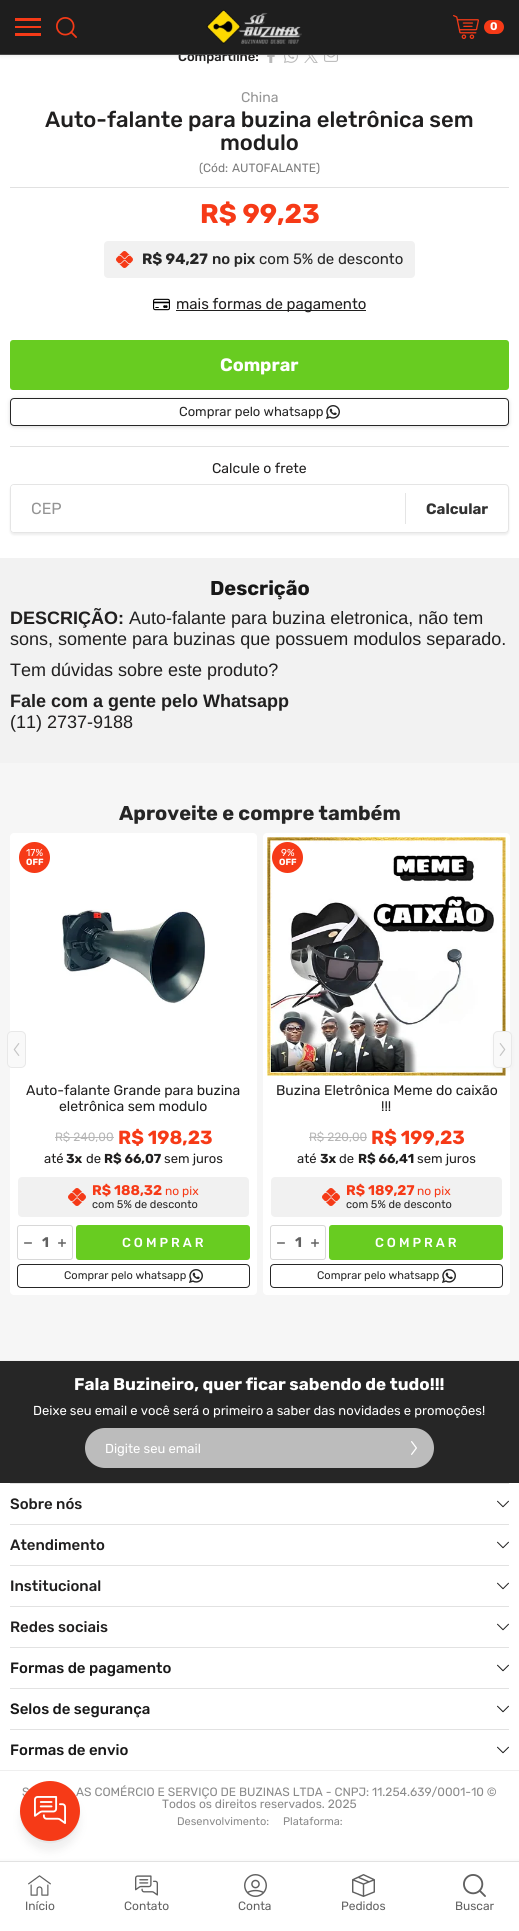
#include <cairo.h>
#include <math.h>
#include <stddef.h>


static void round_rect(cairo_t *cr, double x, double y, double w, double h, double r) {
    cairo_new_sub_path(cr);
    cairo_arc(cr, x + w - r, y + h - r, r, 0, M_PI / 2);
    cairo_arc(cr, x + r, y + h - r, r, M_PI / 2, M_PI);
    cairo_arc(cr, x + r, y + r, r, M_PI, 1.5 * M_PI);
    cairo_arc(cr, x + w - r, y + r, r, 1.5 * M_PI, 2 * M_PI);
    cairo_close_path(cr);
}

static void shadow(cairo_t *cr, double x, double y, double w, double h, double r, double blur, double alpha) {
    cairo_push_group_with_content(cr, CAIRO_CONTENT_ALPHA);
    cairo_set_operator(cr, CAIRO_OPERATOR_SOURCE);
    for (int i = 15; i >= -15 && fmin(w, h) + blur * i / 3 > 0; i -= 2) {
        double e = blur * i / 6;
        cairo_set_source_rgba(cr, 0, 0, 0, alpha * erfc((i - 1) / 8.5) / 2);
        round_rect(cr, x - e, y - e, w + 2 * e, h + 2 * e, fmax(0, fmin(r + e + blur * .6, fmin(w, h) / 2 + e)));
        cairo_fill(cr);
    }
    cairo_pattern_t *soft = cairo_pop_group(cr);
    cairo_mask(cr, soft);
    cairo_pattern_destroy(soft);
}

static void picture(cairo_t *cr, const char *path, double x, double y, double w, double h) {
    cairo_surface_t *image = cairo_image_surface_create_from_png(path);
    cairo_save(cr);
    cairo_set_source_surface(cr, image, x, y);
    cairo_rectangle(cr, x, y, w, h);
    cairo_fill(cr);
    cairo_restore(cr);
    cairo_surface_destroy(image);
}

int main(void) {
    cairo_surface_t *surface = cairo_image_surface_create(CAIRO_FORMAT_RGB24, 519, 1931);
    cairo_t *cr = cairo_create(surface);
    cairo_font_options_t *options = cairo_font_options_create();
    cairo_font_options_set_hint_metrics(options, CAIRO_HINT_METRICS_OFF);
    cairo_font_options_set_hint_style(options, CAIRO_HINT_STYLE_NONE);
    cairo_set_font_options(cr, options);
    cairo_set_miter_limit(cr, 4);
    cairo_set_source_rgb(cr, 0.961, 0.961, 0.961);
    cairo_paint(cr);
    cairo_set_source_rgb(cr, 1, 1, 1);
    cairo_rectangle(cr, 0, 55, 519, 503);
    cairo_fill(cr);
    picture(cr, "img4.png", 267, 55, 8, 8);
    picture(cr, "img5.png", 284, 55, 14, 8);
    picture(cr, "img6.png", 304, 55, 14, 8);
    picture(cr, "img7.png", 324, 55, 14, 7);
    cairo_set_source_rgb(cr, 0.322, 0.322, 0.322);
    shadow(cr, 0, 1, 519, 55, 0, 2, 0.13);
    cairo_select_font_face(cr, "Rubik Medium", CAIRO_FONT_SLANT_NORMAL, CAIRO_FONT_WEIGHT_NORMAL);
    cairo_set_font_size(cr, 13);
    cairo_set_source_rgb(cr, 0.125, 0.122, 0.122);
    cairo_move_to(cr, 178, 61);
    cairo_show_text(cr, "Compartilhe:");
    cairo_set_source_rgb(cr, 0.118, 0.118, 0.118);
    cairo_rectangle(cr, 0, 0, 519, 54);
    cairo_fill(cr);
    cairo_set_source_rgb(cr, 0.275, 0.275, 0.275);
    cairo_rectangle(cr, 0, 54, 519, 1);
    cairo_fill(cr);
    cairo_set_source_rgb(cr, 0.961, 0.227, 0.09);
    cairo_rectangle(cr, 15, 33, 26, 3);
    cairo_fill(cr);
    cairo_rectangle(cr, 15, 26, 26, 2);
    cairo_fill(cr);
    cairo_rectangle(cr, 15, 18, 26, 3);
    cairo_fill(cr);
    picture(cr, "img1.png", 56, 17, 21, 21);
    picture(cr, "img2.png", 206, 9, 96, 35);
    picture(cr, "img3.png", 453, 15, 26, 24);
    round_rect(cr, 484, 20, 20, 14, 7);
    cairo_fill(cr);
    cairo_select_font_face(cr, "Rubik", CAIRO_FONT_SLANT_NORMAL, CAIRO_FONT_WEIGHT_BOLD);
    cairo_set_font_size(cr, 11);
    cairo_set_source_rgb(cr, 1, 1, 1);
    cairo_move_to(cr, 490, 30);
    cairo_show_text(cr, "0");
    cairo_set_source_rgb(cr, 0.882, 0.882, 0.882);
    cairo_rectangle(cr, 10, 187, 499, 1);
    cairo_fill(cr);
    cairo_select_font_face(cr, "Rubik", CAIRO_FONT_SLANT_NORMAL, CAIRO_FONT_WEIGHT_NORMAL);
    cairo_set_font_size(cr, 14);
    cairo_set_source_rgb(cr, 0.58, 0.58, 0.58);
    cairo_move_to(cr, 241, 102);
    cairo_show_text(cr, "China");
    cairo_select_font_face(cr, "Rubik Medium", CAIRO_FONT_SLANT_NORMAL, CAIRO_FONT_WEIGHT_NORMAL);
    cairo_set_font_size(cr, 22);
    cairo_set_source_rgb(cr, 0.125, 0.122, 0.122);
    cairo_move_to(cr, 45, 127);
    cairo_show_text(cr, "Auto-falante para buzina eletrônica sem");
    cairo_move_to(cr, 220, 150);
    cairo_show_text(cr, "modulo");
    cairo_select_font_face(cr, "Rubik", CAIRO_FONT_SLANT_NORMAL, CAIRO_FONT_WEIGHT_NORMAL);
    cairo_set_font_size(cr, 12);
    cairo_set_source_rgb(cr, 0.482, 0.482, 0.482);
    cairo_move_to(cr, 199, 172);
    cairo_show_text(cr, "(Cód:");
    cairo_move_to(cr, 232, 172);
    cairo_show_text(cr, "AUTOFALANTE)");
    cairo_select_font_face(cr, "Rubik", CAIRO_FONT_SLANT_NORMAL, CAIRO_FONT_WEIGHT_BOLD);
    cairo_set_font_size(cr, 27);
    cairo_set_source_rgb(cr, 0.961, 0.227, 0.09);
    cairo_move_to(cr, 200, 223);
    cairo_show_text(cr, "R$ 99,23");
    cairo_set_source_rgb(cr, 0.945, 0.945, 0.945);
    round_rect(cr, 104, 241, 311, 37, 4);
    cairo_fill(cr);
    picture(cr, "img8.png", 116, 251, 17, 17);
    cairo_set_font_size(cr, 15);
    cairo_set_source_rgb(cr, 0.149, 0.149, 0.149);
    cairo_move_to(cr, 142, 264);
    cairo_show_text(cr, "R$ 94,27");
    cairo_select_font_face(cr, "Rubik Medium", CAIRO_FONT_SLANT_NORMAL, CAIRO_FONT_WEIGHT_NORMAL);
    cairo_move_to(cr, 212, 264);
    cairo_show_text(cr, "no pix");
    cairo_select_font_face(cr, "Rubik", CAIRO_FONT_SLANT_NORMAL, CAIRO_FONT_WEIGHT_NORMAL);
    cairo_move_to(cr, 259, 264);
    cairo_show_text(cr, "com 5% de desconto");
    picture(cr, "img9.png", 153, 298, 17, 13);
    cairo_set_source_rgb(cr, 0.125, 0.122, 0.122);
    cairo_rectangle(cr, 176, 310, 190, 1);
    cairo_fill(cr);
    cairo_move_to(cr, 176, 309);
    cairo_show_text(cr, "mais formas de pagamento");
    cairo_set_source_rgb(cr, 0.408, 0.8, 0.129);
    round_rect(cr, 10, 340, 499, 50, 3);
    cairo_fill(cr);
    cairo_select_font_face(cr, "Rubik", CAIRO_FONT_SLANT_NORMAL, CAIRO_FONT_WEIGHT_BOLD);
    cairo_set_font_size(cr, 18);
    cairo_set_source_rgb(cr, 1, 1, 1);
    cairo_move_to(cr, 220, 371);
    cairo_show_text(cr, "Comprar");
    cairo_set_source_rgb(cr, 0.694, 0.694, 0.694);
    shadow(cr, 10, 399, 499, 28, 4, 2, 0.46);
    cairo_set_source_rgb(cr, 1, 1, 1);
    round_rect(cr, 10.5, 398.5, 498, 27, 3.5);
    cairo_fill_preserve(cr);
    cairo_set_source_rgb(cr, 0.149, 0.149, 0.149);
    cairo_set_line_width(cr, 1);
    cairo_stroke(cr);
    cairo_select_font_face(cr, "Rubik", CAIRO_FONT_SLANT_NORMAL, CAIRO_FONT_WEIGHT_NORMAL);
    cairo_set_font_size(cr, 13);
    cairo_move_to(cr, 179, 416);
    cairo_show_text(cr, "Comprar pelo whatsapp");
    picture(cr, "img10.png", 326, 405, 14, 14);
    cairo_set_source_rgb(cr, 0.882, 0.882, 0.882);
    cairo_rectangle(cr, 10, 446, 499, 1);
    cairo_fill(cr);
    cairo_set_font_size(cr, 14);
    cairo_set_source_rgb(cr, 0.125, 0.122, 0.122);
    cairo_move_to(cr, 212, 473);
    cairo_show_text(cr, "Calcule o frete");
    cairo_save(cr);
    cairo_set_fill_rule(cr, CAIRO_FILL_RULE_EVEN_ODD);
    cairo_new_path(cr);
    cairo_move_to(cr, 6, 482);
    cairo_line_to(cr, 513, 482);
    cairo_line_to(cr, 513, 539);
    cairo_line_to(cr, 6, 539);
    cairo_close_path(cr);
    cairo_move_to(cr, 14, 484);
    cairo_line_to(cr, 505, 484);
    cairo_curve_to(cr, 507, 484, 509, 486, 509, 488);
    cairo_line_to(cr, 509, 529);
    cairo_curve_to(cr, 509, 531, 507, 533, 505, 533);
    cairo_line_to(cr, 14, 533);
    cairo_curve_to(cr, 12, 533, 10, 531, 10, 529);
    cairo_line_to(cr, 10, 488);
    cairo_curve_to(cr, 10, 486, 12, 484, 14, 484);
    cairo_close_path(cr);
    cairo_clip(cr);
    cairo_set_source_rgb(cr, 0.804, 0.804, 0.804);
    shadow(cr, 10, 486, 499, 49, 4, 1, 0.35);
    cairo_restore(cr);
    round_rect(cr, 10.5, 484.5, 498, 48, 3.5);
    cairo_set_source_rgb(cr, 0.898, 0.898, 0.898);
    cairo_stroke(cr);
    cairo_set_source_rgb(cr, 1, 1, 1);
    round_rect(cr, 11, 485, 394, 47, 3);
    cairo_fill(cr);
    cairo_set_font_size(cr, 16);
    cairo_set_source_rgb(cr, 0.58, 0.58, 0.58);
    cairo_move_to(cr, 31, 514);
    cairo_show_text(cr, "CEP");
    cairo_set_source_rgb(cr, 0.898, 0.898, 0.898);
    cairo_rectangle(cr, 405, 493, 1, 31);
    cairo_fill(cr);
    cairo_select_font_face(cr, "Rubik", CAIRO_FONT_SLANT_NORMAL, CAIRO_FONT_WEIGHT_BOLD);
    cairo_set_font_size(cr, 15);
    cairo_set_source_rgb(cr, 0.2, 0.2, 0.2);
    cairo_move_to(cr, 426, 514);
    cairo_show_text(cr, "Calcular");
    cairo_set_source_rgb(cr, 0.949, 0.949, 0.949);
    cairo_rectangle(cr, 0, 558, 519, 205);
    cairo_fill(cr);
    cairo_set_font_size(cr, 20);
    cairo_set_source_rgb(cr, 0.094, 0.094, 0.094);
    cairo_move_to(cr, 210, 595);
    cairo_show_text(cr, "Descrição");
    cairo_select_font_face(cr, "Liberation Sans", CAIRO_FONT_SLANT_NORMAL, CAIRO_FONT_WEIGHT_BOLD);
    cairo_set_font_size(cr, 18);
    cairo_set_source_rgb(cr, 0.125, 0.122, 0.122);
    cairo_move_to(cr, 10, 624);
    cairo_show_text(cr, "DESCRIÇÃO:");
    cairo_select_font_face(cr, "Liberation Sans", CAIRO_FONT_SLANT_NORMAL, CAIRO_FONT_WEIGHT_NORMAL);
    cairo_move_to(cr, 129, 624);
    cairo_show_text(cr, "Auto-falante para buzina eletronica, não tem");
    cairo_move_to(cr, 10, 645);
    cairo_show_text(cr, "sons, somente para buzinas que possuem modulos separado.");
    cairo_move_to(cr, 10, 676);
    cairo_show_text(cr, "Tem dúvidas sobre este produto?");
    cairo_select_font_face(cr, "Liberation Sans", CAIRO_FONT_SLANT_NORMAL, CAIRO_FONT_WEIGHT_BOLD);
    cairo_move_to(cr, 10, 707);
    cairo_show_text(cr, "Fale com a gente pelo Whatsapp");
    cairo_select_font_face(cr, "Liberation Sans", CAIRO_FONT_SLANT_NORMAL, CAIRO_FONT_WEIGHT_NORMAL);
    cairo_move_to(cr, 10, 728);
    cairo_show_text(cr, "(11) 2737-9188");
    cairo_select_font_face(cr, "Rubik", CAIRO_FONT_SLANT_NORMAL, CAIRO_FONT_WEIGHT_BOLD);
    cairo_set_font_size(cr, 20);
    cairo_set_source_rgb(cr, 0.149, 0.149, 0.149);
    cairo_move_to(cr, 119, 820);
    cairo_show_text(cr, "Aproveite e compre também");
    cairo_set_source_rgb(cr, 1, 1, 1);
    round_rect(cr, 10, 833, 247, 462, 4);
    cairo_fill(cr);
    cairo_set_source_rgb(cr, 0.976, 0.976, 0.976);
    round_rect(cr, 7.5, 1031.5, 18, 36, 4.5);
    cairo_fill_preserve(cr);
    cairo_set_source_rgb(cr, 0.91, 0.91, 0.91);
    cairo_stroke(cr);
    picture(cr, "img11.png", 13, 1043, 7, 13);
    cairo_set_source_rgb(cr, 0.961, 0.227, 0.09);
    cairo_arc(cr, 34.5, 857.5, 15.5, 0, 2 * M_PI);
    cairo_fill(cr);
    cairo_select_font_face(cr, "Rubik", CAIRO_FONT_SLANT_NORMAL, CAIRO_FONT_WEIGHT_NORMAL);
    cairo_set_font_size(cr, 10);
    cairo_set_source_rgb(cr, 1, 1, 1);
    cairo_move_to(cr, 26, 856);
    cairo_show_text(cr, "17%");
    cairo_select_font_face(cr, "Rubik", CAIRO_FONT_SLANT_NORMAL, CAIRO_FONT_WEIGHT_BOLD);
    cairo_set_font_size(cr, 9);
    cairo_move_to(cr, 26, 865);
    cairo_show_text(cr, "OFF");
    picture(cr, "img12.png", 61, 909, 144, 95);
    cairo_select_font_face(cr, "Rubik", CAIRO_FONT_SLANT_NORMAL, CAIRO_FONT_WEIGHT_NORMAL);
    cairo_set_font_size(cr, 14);
    cairo_set_source_rgb(cr, 0.125, 0.122, 0.122);
    cairo_move_to(cr, 26, 1095);
    cairo_show_text(cr, "Auto-falante Grande para buzina");
    cairo_move_to(cr, 59, 1111);
    cairo_show_text(cr, "eletrônica sem modulo");
    cairo_set_font_size(cr, 12);
    cairo_set_source_rgb(cr, 0.718, 0.718, 0.718);
    cairo_move_to(cr, 55, 1141);
    cairo_show_text(cr, "R$ 240,00");
    cairo_rectangle(cr, 55, 1137, 59, 1);
    cairo_fill(cr);
    cairo_select_font_face(cr, "Rubik", CAIRO_FONT_SLANT_NORMAL, CAIRO_FONT_WEIGHT_BOLD);
    cairo_set_font_size(cr, 19);
    cairo_set_source_rgb(cr, 0.961, 0.227, 0.09);
    cairo_move_to(cr, 118, 1144);
    cairo_show_text(cr, "R$ 198,23");
    cairo_select_font_face(cr, "Rubik", CAIRO_FONT_SLANT_NORMAL, CAIRO_FONT_WEIGHT_NORMAL);
    cairo_set_font_size(cr, 13);
    cairo_set_source_rgb(cr, 0.125, 0.122, 0.122);
    cairo_move_to(cr, 44, 1163);
    cairo_show_text(cr, "até");
    cairo_select_font_face(cr, "Rubik", CAIRO_FONT_SLANT_NORMAL, CAIRO_FONT_WEIGHT_BOLD);
    cairo_move_to(cr, 66, 1163);
    cairo_show_text(cr, "3x");
    cairo_select_font_face(cr, "Rubik", CAIRO_FONT_SLANT_NORMAL, CAIRO_FONT_WEIGHT_NORMAL);
    cairo_move_to(cr, 86, 1163);
    cairo_show_text(cr, "de");
    cairo_select_font_face(cr, "Rubik", CAIRO_FONT_SLANT_NORMAL, CAIRO_FONT_WEIGHT_BOLD);
    cairo_move_to(cr, 104, 1163);
    cairo_show_text(cr, "R$ 66,07");
    cairo_select_font_face(cr, "Rubik", CAIRO_FONT_SLANT_NORMAL, CAIRO_FONT_WEIGHT_NORMAL);
    cairo_move_to(cr, 164, 1163);
    cairo_show_text(cr, "sem juros");
    cairo_set_source_rgb(cr, 0.945, 0.945, 0.945);
    round_rect(cr, 18, 1177, 231, 40, 4);
    cairo_fill(cr);
    picture(cr, "img13.png", 68, 1188, 18, 18);
    cairo_select_font_face(cr, "Rubik", CAIRO_FONT_SLANT_NORMAL, CAIRO_FONT_WEIGHT_BOLD);
    cairo_set_font_size(cr, 14);
    cairo_set_source_rgb(cr, 0.961, 0.227, 0.09);
    cairo_move_to(cr, 92, 1195);
    cairo_show_text(cr, "R$ 188,32");
    cairo_select_font_face(cr, "Rubik", CAIRO_FONT_SLANT_NORMAL, CAIRO_FONT_WEIGHT_NORMAL);
    cairo_set_font_size(cr, 12);
    cairo_move_to(cr, 165, 1195);
    cairo_show_text(cr, "no pix");
    cairo_set_font_size(cr, 11);
    cairo_set_source_rgb(cr, 0.149, 0.149, 0.149);
    cairo_move_to(cr, 92, 1208);
    cairo_show_text(cr, "com 5% de desconto");
    round_rect(cr, 17.5, 1225.5, 55, 34, 2.5);
    cairo_set_source_rgb(cr, 0.847, 0.847, 0.847);
    cairo_stroke(cr);
    picture(cr, "img14.png", 24, 1242, 8, 2);
    cairo_select_font_face(cr, "Rubik", CAIRO_FONT_SLANT_NORMAL, CAIRO_FONT_WEIGHT_BOLD);
    cairo_set_font_size(cr, 14);
    cairo_set_source_rgb(cr, 0.38, 0.38, 0.38);
    cairo_move_to(cr, 42, 1247);
    cairo_show_text(cr, "1");
    picture(cr, "img15.png", 58, 1239, 8, 8);
    cairo_set_source_rgb(cr, 0.408, 0.8, 0.129);
    round_rect(cr, 76, 1225, 174, 35, 3);
    cairo_fill(cr);
    cairo_select_font_face(cr, "Rubik Medium", CAIRO_FONT_SLANT_NORMAL, CAIRO_FONT_WEIGHT_NORMAL);
    cairo_set_font_size(cr, 13);
    cairo_set_source_rgb(cr, 1, 1, 1);
    cairo_move_to(cr, 122, 1247);
    cairo_show_text(cr, "C O M P R A R");
    round_rect(cr, 17.5, 1264.5, 232, 23, 3.5);
    cairo_set_source_rgb(cr, 0.149, 0.149, 0.149);
    cairo_stroke(cr);
    cairo_select_font_face(cr, "Rubik", CAIRO_FONT_SLANT_NORMAL, CAIRO_FONT_WEIGHT_NORMAL);
    cairo_set_font_size(cr, 11);
    cairo_move_to(cr, 64, 1279);
    cairo_show_text(cr, "Comprar pelo whatsapp");
    picture(cr, "img10.png", 189, 1269, 14, 14);
    cairo_set_source_rgb(cr, 1, 1, 1);
    round_rect(cr, 263, 833, 247, 462, 4);
    cairo_fill(cr);
    picture(cr, "img16.png", 267, 837, 239, 239);
    cairo_set_source_rgb(cr, 0.961, 0.227, 0.09);
    cairo_arc(cr, 287.5, 857.5, 15.5, 0, 2 * M_PI);
    cairo_fill(cr);
    cairo_set_font_size(cr, 10);
    cairo_set_source_rgb(cr, 1, 1, 1);
    cairo_move_to(cr, 281, 856);
    cairo_show_text(cr, "9%");
    cairo_select_font_face(cr, "Rubik", CAIRO_FONT_SLANT_NORMAL, CAIRO_FONT_WEIGHT_BOLD);
    cairo_set_font_size(cr, 9);
    cairo_move_to(cr, 279, 865);
    cairo_show_text(cr, "OFF");
    cairo_select_font_face(cr, "Rubik", CAIRO_FONT_SLANT_NORMAL, CAIRO_FONT_WEIGHT_NORMAL);
    cairo_set_font_size(cr, 14);
    cairo_set_source_rgb(cr, 0.125, 0.122, 0.122);
    cairo_move_to(cr, 276, 1095);
    cairo_show_text(cr, "Buzina Eletrônica Meme do caixão");
    cairo_move_to(cr, 381, 1111);
    cairo_show_text(cr, "!!!");
    cairo_set_font_size(cr, 12);
    cairo_set_source_rgb(cr, 0.718, 0.718, 0.718);
    cairo_move_to(cr, 309, 1141);
    cairo_show_text(cr, "R$ 220,00");
    cairo_rectangle(cr, 309, 1137, 58, 1);
    cairo_fill(cr);
    cairo_select_font_face(cr, "Rubik", CAIRO_FONT_SLANT_NORMAL, CAIRO_FONT_WEIGHT_BOLD);
    cairo_set_font_size(cr, 19);
    cairo_set_source_rgb(cr, 0.961, 0.227, 0.09);
    cairo_move_to(cr, 371, 1144);
    cairo_show_text(cr, "R$ 199,23");
    cairo_select_font_face(cr, "Rubik", CAIRO_FONT_SLANT_NORMAL, CAIRO_FONT_WEIGHT_NORMAL);
    cairo_set_font_size(cr, 13);
    cairo_set_source_rgb(cr, 0.125, 0.122, 0.122);
    cairo_move_to(cr, 297, 1163);
    cairo_show_text(cr, "até");
    cairo_select_font_face(cr, "Rubik", CAIRO_FONT_SLANT_NORMAL, CAIRO_FONT_WEIGHT_BOLD);
    cairo_move_to(cr, 320, 1163);
    cairo_show_text(cr, "3x");
    cairo_select_font_face(cr, "Rubik", CAIRO_FONT_SLANT_NORMAL, CAIRO_FONT_WEIGHT_NORMAL);
    cairo_move_to(cr, 339, 1163);
    cairo_show_text(cr, "de");
    cairo_select_font_face(cr, "Rubik", CAIRO_FONT_SLANT_NORMAL, CAIRO_FONT_WEIGHT_BOLD);
    cairo_move_to(cr, 358, 1163);
    cairo_show_text(cr, "R$ 66,41");
    cairo_select_font_face(cr, "Rubik", CAIRO_FONT_SLANT_NORMAL, CAIRO_FONT_WEIGHT_NORMAL);
    cairo_move_to(cr, 417, 1163);
    cairo_show_text(cr, "sem juros");
    cairo_set_source_rgb(cr, 0.945, 0.945, 0.945);
    round_rect(cr, 271, 1177, 231, 40, 4);
    cairo_fill(cr);
    picture(cr, "img13.png", 322, 1188, 18, 18);
    cairo_select_font_face(cr, "Rubik", CAIRO_FONT_SLANT_NORMAL, CAIRO_FONT_WEIGHT_BOLD);
    cairo_set_font_size(cr, 14);
    cairo_set_source_rgb(cr, 0.961, 0.227, 0.09);
    cairo_move_to(cr, 346, 1195);
    cairo_show_text(cr, "R$ 189,27");
    cairo_select_font_face(cr, "Rubik", CAIRO_FONT_SLANT_NORMAL, CAIRO_FONT_WEIGHT_NORMAL);
    cairo_set_font_size(cr, 12);
    cairo_move_to(cr, 417, 1195);
    cairo_show_text(cr, "no pix");
    cairo_set_font_size(cr, 11);
    cairo_set_source_rgb(cr, 0.149, 0.149, 0.149);
    cairo_move_to(cr, 346, 1208);
    cairo_show_text(cr, "com 5% de desconto");
    round_rect(cr, 270.5, 1225.5, 55, 34, 2.5);
    cairo_set_source_rgb(cr, 0.847, 0.847, 0.847);
    cairo_stroke(cr);
    picture(cr, "img14.png", 277, 1242, 8, 2);
    cairo_select_font_face(cr, "Rubik", CAIRO_FONT_SLANT_NORMAL, CAIRO_FONT_WEIGHT_BOLD);
    cairo_set_font_size(cr, 14);
    cairo_set_source_rgb(cr, 0.38, 0.38, 0.38);
    cairo_move_to(cr, 295, 1247);
    cairo_show_text(cr, "1");
    picture(cr, "img15.png", 311, 1239, 8, 8);
    cairo_set_source_rgb(cr, 0.408, 0.8, 0.129);
    round_rect(cr, 329, 1225, 174, 35, 3);
    cairo_fill(cr);
    cairo_select_font_face(cr, "Rubik Medium", CAIRO_FONT_SLANT_NORMAL, CAIRO_FONT_WEIGHT_NORMAL);
    cairo_set_font_size(cr, 13);
    cairo_set_source_rgb(cr, 1, 1, 1);
    cairo_move_to(cr, 375, 1247);
    cairo_show_text(cr, "C O M P R A R");
    round_rect(cr, 270.5, 1264.5, 232, 23, 3.5);
    cairo_set_source_rgb(cr, 0.149, 0.149, 0.149);
    cairo_stroke(cr);
    cairo_select_font_face(cr, "Rubik", CAIRO_FONT_SLANT_NORMAL, CAIRO_FONT_WEIGHT_NORMAL);
    cairo_set_font_size(cr, 11);
    cairo_move_to(cr, 317, 1279);
    cairo_show_text(cr, "Comprar pelo whatsapp");
    picture(cr, "img10.png", 442, 1269, 14, 14);
    cairo_set_source_rgb(cr, 0.804, 0.804, 0.804);
    shadow(cr, 493, 1033, 19, 37, 5, 2, 0.16);
    cairo_set_source_rgb(cr, 0.976, 0.976, 0.976);
    round_rect(cr, 493.5, 1031.5, 18, 36, 4.5);
    cairo_fill_preserve(cr);
    cairo_set_source_rgb(cr, 0.91, 0.91, 0.91);
    cairo_stroke(cr);
    picture(cr, "img17.png", 499, 1043, 7, 13);
    cairo_set_source_rgb(cr, 0.937, 0.937, 0.937);
    cairo_rectangle(cr, 0, 1360, 519, 1);
    cairo_fill(cr);
    cairo_set_source_rgb(cr, 0.149, 0.149, 0.149);
    cairo_rectangle(cr, 0, 1361, 519, 122);
    cairo_fill(cr);
    cairo_select_font_face(cr, "Rubik", CAIRO_FONT_SLANT_NORMAL, CAIRO_FONT_WEIGHT_BOLD);
    cairo_set_font_size(cr, 17);
    cairo_set_source_rgb(cr, 1, 1, 1);
    cairo_move_to(cr, 74, 1390);
    cairo_show_text(cr, "Fala Buzineiro, quer ficar sabendo de tudo!!!");
    cairo_select_font_face(cr, "Rubik", CAIRO_FONT_SLANT_NORMAL, CAIRO_FONT_WEIGHT_NORMAL);
    cairo_set_font_size(cr, 13);
    cairo_move_to(cr, 33, 1415);
    cairo_show_text(cr, "Deixe seu email e você será o primeiro a saber das novidades e promoções!");
    cairo_set_source_rgb(cr, 0.737, 0.737, 0.737);
    round_rect(cr, 85, 1428, 349, 40, 20);
    cairo_fill(cr);
    cairo_set_source_rgb(cr, 1, 1, 1);
    cairo_move_to(cr, 105, 1453);
    cairo_show_text(cr, "Digite seu email");
    picture(cr, "img18.png", 411, 1441, 6, 14);
    cairo_rectangle(cr, 0, 1483, 519, 287);
    cairo_fill(cr);
    cairo_set_source_rgb(cr, 0.886, 0.886, 0.886);
    cairo_rectangle(cr, 10, 1483, 499, 1);
    cairo_fill(cr);
    cairo_select_font_face(cr, "Rubik Medium", CAIRO_FONT_SLANT_NORMAL, CAIRO_FONT_WEIGHT_NORMAL);
    cairo_set_font_size(cr, 15);
    cairo_set_source_rgb(cr, 0.125, 0.122, 0.122);
    cairo_move_to(cr, 10, 1509);
    cairo_show_text(cr, "Sobre nós");
    picture(cr, "img19.png", 497, 1500, 12, 8);
    cairo_set_source_rgb(cr, 0.886, 0.886, 0.886);
    cairo_rectangle(cr, 10, 1524, 499, 1);
    cairo_fill(cr);
    cairo_set_source_rgb(cr, 0.125, 0.122, 0.122);
    cairo_move_to(cr, 10, 1550);
    cairo_show_text(cr, "Atendimento");
    picture(cr, "img19.png", 497, 1541, 12, 8);
    cairo_set_source_rgb(cr, 0.886, 0.886, 0.886);
    cairo_rectangle(cr, 10, 1565, 499, 1);
    cairo_fill(cr);
    cairo_set_source_rgb(cr, 0.125, 0.122, 0.122);
    cairo_move_to(cr, 10, 1591);
    cairo_show_text(cr, "Institucional");
    picture(cr, "img19.png", 497, 1582, 12, 8);
    cairo_set_source_rgb(cr, 0.886, 0.886, 0.886);
    cairo_rectangle(cr, 10, 1606, 499, 1);
    cairo_fill(cr);
    cairo_set_source_rgb(cr, 0.125, 0.122, 0.122);
    cairo_move_to(cr, 10, 1632);
    cairo_show_text(cr, "Redes sociais");
    picture(cr, "img19.png", 497, 1623, 12, 8);
    cairo_set_source_rgb(cr, 0.886, 0.886, 0.886);
    cairo_rectangle(cr, 10, 1647, 499, 1);
    cairo_fill(cr);
    cairo_set_source_rgb(cr, 0.094, 0.094, 0.094);
    cairo_move_to(cr, 10, 1673);
    cairo_show_text(cr, "Formas de pagamento");
    picture(cr, "img20.png", 497, 1664, 12, 8);
    cairo_set_source_rgb(cr, 0.886, 0.886, 0.886);
    cairo_rectangle(cr, 10, 1688, 499, 1);
    cairo_fill(cr);
    cairo_set_source_rgb(cr, 0.094, 0.094, 0.094);
    cairo_move_to(cr, 10, 1714);
    cairo_show_text(cr, "Selos de segurança");
    picture(cr, "img20.png", 497, 1705, 12, 8);
    cairo_set_source_rgb(cr, 0.886, 0.886, 0.886);
    cairo_rectangle(cr, 10, 1729, 499, 1);
    cairo_fill(cr);
    cairo_set_source_rgb(cr, 0.094, 0.094, 0.094);
    cairo_move_to(cr, 10, 1755);
    cairo_show_text(cr, "Formas de envio");
    picture(cr, "img20.png", 497, 1746, 12, 8);
    cairo_set_source_rgb(cr, 1, 1, 1);
    cairo_rectangle(cr, 0, 1771, 519, 90);
    cairo_fill(cr);
    cairo_set_source_rgb(cr, 0.937, 0.937, 0.937);
    cairo_rectangle(cr, 0, 1770, 519, 1);
    cairo_fill(cr);
    cairo_select_font_face(cr, "Rubik", CAIRO_FONT_SLANT_NORMAL, CAIRO_FONT_WEIGHT_NORMAL);
    cairo_set_font_size(cr, 12);
    cairo_set_source_rgb(cr, 0.541, 0.541, 0.541);
    cairo_move_to(cr, 22, 1796);
    cairo_show_text(cr, "S");
    cairo_move_to(cr, 76, 1796);
    cairo_show_text(cr, "AS COMÉRCIO E SERVIÇO DE BUZINAS LTDA - CNPJ: 11.254.639/0001-10 ©");
    cairo_move_to(cr, 162, 1808);
    cairo_show_text(cr, "Todos os direitos reservados. 2025");
    cairo_set_font_size(cr, 11);
    cairo_move_to(cr, 177, 1825);
    cairo_show_text(cr, "Desenvolvimento:");
    cairo_move_to(cr, 283, 1825);
    cairo_show_text(cr, "Plataforma:");
    cairo_set_source_rgb(cr, 0.404, 0.404, 0.404);
    shadow(cr, 20, 1791, 60, 60, 30, 4, 0.1);
    cairo_set_source_rgb(cr, 0, 0, 0);
    shadow(cr, 20, 1783, 60, 60, 30, 0.5, 0.04);
    cairo_set_source_rgb(cr, 0.961, 0.227, 0.09);
    cairo_arc(cr, 50, 1811, 30, 0, 2 * M_PI);
    cairo_fill(cr);
    picture(cr, "img21.png", 34, 1796, 32, 28);
    cairo_set_source_rgb(cr, 0.322, 0.322, 0.322);
    shadow(cr, 0, 1861, 519, 70, 0, 2, 0.08);
    cairo_set_source_rgb(cr, 1, 1, 1);
    cairo_rectangle(cr, 0, 1862, 519, 69);
    cairo_fill(cr);
    cairo_set_source_rgb(cr, 0.886, 0.886, 0.886);
    cairo_rectangle(cr, 0, 1861, 519, 1);
    cairo_fill(cr);
    picture(cr, "img22.png", 28, 1875, 23, 21);
    cairo_set_font_size(cr, 12);
    cairo_set_source_rgb(cr, 0.38, 0.38, 0.38);
    cairo_move_to(cr, 25, 1910);
    cairo_show_text(cr, "Início");
    picture(cr, "img23.png", 135, 1875, 23, 21);
    cairo_move_to(cr, 124, 1910);
    cairo_show_text(cr, "Contato");
    picture(cr, "img24.png", 244, 1874, 23, 23);
    cairo_move_to(cr, 238, 1910);
    cairo_show_text(cr, "Conta");
    picture(cr, "img25.png", 352, 1874, 23, 23);
    cairo_move_to(cr, 341, 1910);
    cairo_show_text(cr, "Pedidos");
    picture(cr, "img26.png", 463, 1874, 23, 23);
    cairo_move_to(cr, 455, 1910);
    cairo_show_text(cr, "Buscar");
    cairo_surface_write_to_png(surface, "page.png");
    cairo_font_options_destroy(options);
    cairo_destroy(cr);
    cairo_surface_destroy(surface);
    return 0;
}
